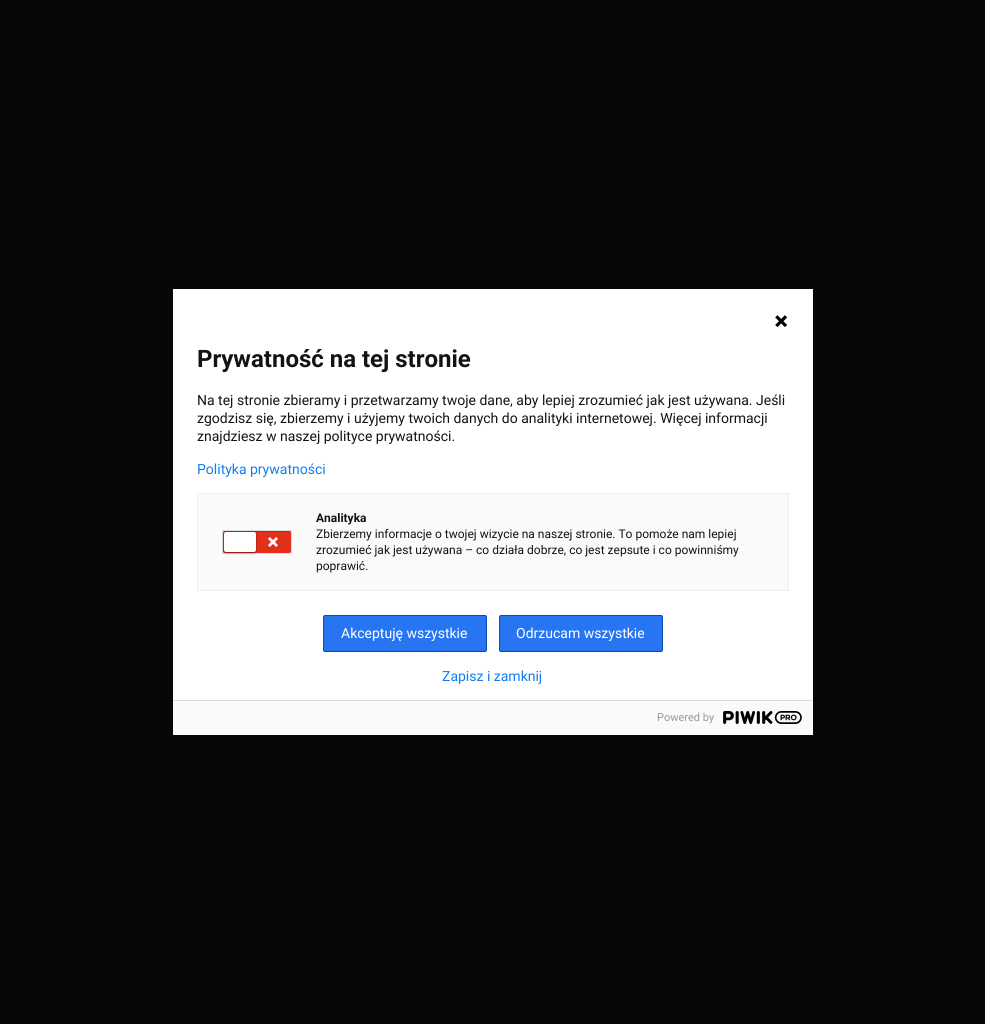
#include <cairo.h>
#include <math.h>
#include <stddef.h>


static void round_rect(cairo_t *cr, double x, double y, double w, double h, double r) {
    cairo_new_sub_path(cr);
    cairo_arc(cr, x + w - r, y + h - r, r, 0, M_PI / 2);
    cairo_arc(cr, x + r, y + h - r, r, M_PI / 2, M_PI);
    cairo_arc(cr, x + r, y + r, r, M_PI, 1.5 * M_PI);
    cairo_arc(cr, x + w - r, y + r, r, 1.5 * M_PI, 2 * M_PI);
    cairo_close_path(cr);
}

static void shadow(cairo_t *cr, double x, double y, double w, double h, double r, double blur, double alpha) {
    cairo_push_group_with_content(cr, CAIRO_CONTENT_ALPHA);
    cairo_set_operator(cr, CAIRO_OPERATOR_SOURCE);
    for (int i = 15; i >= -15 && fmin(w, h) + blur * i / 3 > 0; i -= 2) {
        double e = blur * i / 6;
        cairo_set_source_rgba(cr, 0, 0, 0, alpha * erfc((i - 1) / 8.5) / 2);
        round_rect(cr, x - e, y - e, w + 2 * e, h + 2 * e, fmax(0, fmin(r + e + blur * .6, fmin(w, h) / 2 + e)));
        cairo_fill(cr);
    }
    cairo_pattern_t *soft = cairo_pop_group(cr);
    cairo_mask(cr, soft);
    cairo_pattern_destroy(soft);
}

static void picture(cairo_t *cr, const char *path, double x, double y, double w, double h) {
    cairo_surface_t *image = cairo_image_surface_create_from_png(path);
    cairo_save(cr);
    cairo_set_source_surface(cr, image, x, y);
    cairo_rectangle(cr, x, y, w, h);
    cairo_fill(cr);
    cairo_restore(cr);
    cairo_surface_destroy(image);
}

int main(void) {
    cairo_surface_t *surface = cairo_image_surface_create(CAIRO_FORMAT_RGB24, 985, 1024);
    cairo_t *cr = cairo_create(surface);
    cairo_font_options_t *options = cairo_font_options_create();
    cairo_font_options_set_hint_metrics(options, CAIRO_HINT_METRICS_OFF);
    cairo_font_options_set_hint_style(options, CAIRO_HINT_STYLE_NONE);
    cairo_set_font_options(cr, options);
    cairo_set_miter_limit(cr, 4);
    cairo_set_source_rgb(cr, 0.027, 0.035, 0.027);
    cairo_paint(cr);
    cairo_set_source_rgb(cr, 1, 1, 1);
    cairo_rectangle(cr, 173, 289, 640, 411);
    cairo_fill(cr);
    picture(cr, "img1.png", 775, 315, 13, 13);
    cairo_select_font_face(cr, "Roboto", CAIRO_FONT_SLANT_NORMAL, CAIRO_FONT_WEIGHT_BOLD);
    cairo_set_font_size(cr, 24);
    cairo_set_source_rgb(cr, 0.075, 0.075, 0.075);
    cairo_move_to(cr, 197, 367);
    cairo_show_text(cr, "Prywatność na tej stronie");
    cairo_select_font_face(cr, "Roboto", CAIRO_FONT_SLANT_NORMAL, CAIRO_FONT_WEIGHT_NORMAL);
    cairo_set_font_size(cr, 14);
    cairo_move_to(cr, 197, 405);
    cairo_show_text(cr, "Na tej stronie zbieramy i przetwarzamy twoje dane, aby lepiej zrozumieć jak jest używana. Jeśli");
    cairo_move_to(cr, 197, 423);
    cairo_show_text(cr, "zgodzisz się, zbierzemy i użyjemy twoich danych do analityki internetowej. Więcej informacji");
    cairo_move_to(cr, 197, 441);
    cairo_show_text(cr, "znajdziesz w naszej polityce prywatności.");
    cairo_set_source_rgb(cr, 0.063, 0.494, 0.945);
    cairo_move_to(cr, 197, 474);
    cairo_show_text(cr, "Polityka prywatności");
    cairo_set_source_rgb(cr, 0.98, 0.98, 0.98);
    cairo_rectangle(cr, 197.5, 493.5, 591, 97);
    cairo_fill_preserve(cr);
    cairo_set_source_rgb(cr, 0.933, 0.933, 0.933);
    cairo_set_line_width(cr, 1);
    cairo_stroke(cr);
    cairo_set_source_rgb(cr, 0.89, 0.188, 0.106);
    round_rect(cr, 222, 530, 70, 24, 3);
    cairo_fill(cr);
    cairo_set_source_rgb(cr, 0.714, 0.149, 0.086);
    cairo_new_path(cr);
    cairo_move_to(cr, 225, 532);
    cairo_line_to(cr, 290, 532);
    cairo_line_to(cr, 291, 534);
    cairo_curve_to(cr, 291, 528, 282, 531, 278, 531);
    cairo_line_to(cr, 236, 531);
    cairo_curve_to(cr, 232, 531, 223, 528, 223, 534);
    cairo_curve_to(cr, 223, 533, 224, 532, 225, 532);
    cairo_close_path(cr);
    cairo_fill(cr);
    round_rect(cr, 222.5, 530.5, 69, 23, 2.5);
    cairo_set_source_rgb(cr, 0.867, 0.867, 0.867);
    cairo_stroke(cr);
    cairo_set_source_rgb(cr, 0, 0, 0);
    shadow(cr, 224, 533, 32, 20, 2, 1, 0.5);
    cairo_set_source_rgb(cr, 1, 1, 1);
    round_rect(cr, 224, 532, 32, 20, 2);
    cairo_fill(cr);
    picture(cr, "img2.png", 268, 537, 10, 10);
    cairo_select_font_face(cr, "Roboto", CAIRO_FONT_SLANT_NORMAL, CAIRO_FONT_WEIGHT_BOLD);
    cairo_set_font_size(cr, 12);
    cairo_set_source_rgb(cr, 0.075, 0.075, 0.075);
    cairo_move_to(cr, 316, 522);
    cairo_show_text(cr, "Analityka");
    cairo_select_font_face(cr, "Roboto", CAIRO_FONT_SLANT_NORMAL, CAIRO_FONT_WEIGHT_NORMAL);
    cairo_move_to(cr, 316, 538);
    cairo_show_text(cr, "Zbierzemy informacje o twojej wizycie na naszej stronie. To pomoże nam lepiej");
    cairo_move_to(cr, 316, 554);
    cairo_show_text(cr, "zrozumieć jak jest używana – co działa dobrze, co jest zepsute i co powinniśmy");
    cairo_move_to(cr, 316, 570);
    cairo_show_text(cr, "poprawić.");
    cairo_set_source_rgb(cr, 0.153, 0.459, 0.949);
    round_rect(cr, 323.5, 615.5, 163, 36, 1.5);
    cairo_fill_preserve(cr);
    cairo_set_source_rgb(cr, 0.043, 0.294, 0.702);
    cairo_stroke(cr);
    cairo_set_font_size(cr, 14);
    cairo_set_source_rgb(cr, 1, 1, 1);
    cairo_move_to(cr, 341, 638);
    cairo_show_text(cr, "Akceptuję wszystkie");
    cairo_set_source_rgb(cr, 0.153, 0.459, 0.949);
    round_rect(cr, 499.5, 615.5, 163, 36, 1.5);
    cairo_fill_preserve(cr);
    cairo_set_source_rgb(cr, 0.043, 0.294, 0.702);
    cairo_stroke(cr);
    cairo_set_source_rgb(cr, 1, 1, 1);
    cairo_move_to(cr, 516, 638);
    cairo_show_text(cr, "Odrzucam wszystkie");
    cairo_set_source_rgb(cr, 0.063, 0.494, 0.945);
    cairo_move_to(cr, 442, 681);
    cairo_show_text(cr, "Zapisz i zamknij");
    cairo_set_source_rgb(cr, 0.98, 0.98, 0.98);
    cairo_rectangle(cr, 173, 701, 640, 34);
    cairo_fill(cr);
    cairo_set_source_rgb(cr, 0.867, 0.867, 0.867);
    cairo_rectangle(cr, 173, 700, 640, 1);
    cairo_fill(cr);
    cairo_set_font_size(cr, 11);
    cairo_set_source_rgb(cr, 0.6, 0.6, 0.6);
    cairo_move_to(cr, 657, 721);
    cairo_show_text(cr, "Powered by");
    picture(cr, "img3.png", 723, 711, 79, 13);
    cairo_surface_write_to_png(surface, "page.png");
    cairo_font_options_destroy(options);
    cairo_destroy(cr);
    cairo_surface_destroy(surface);
    return 0;
}
